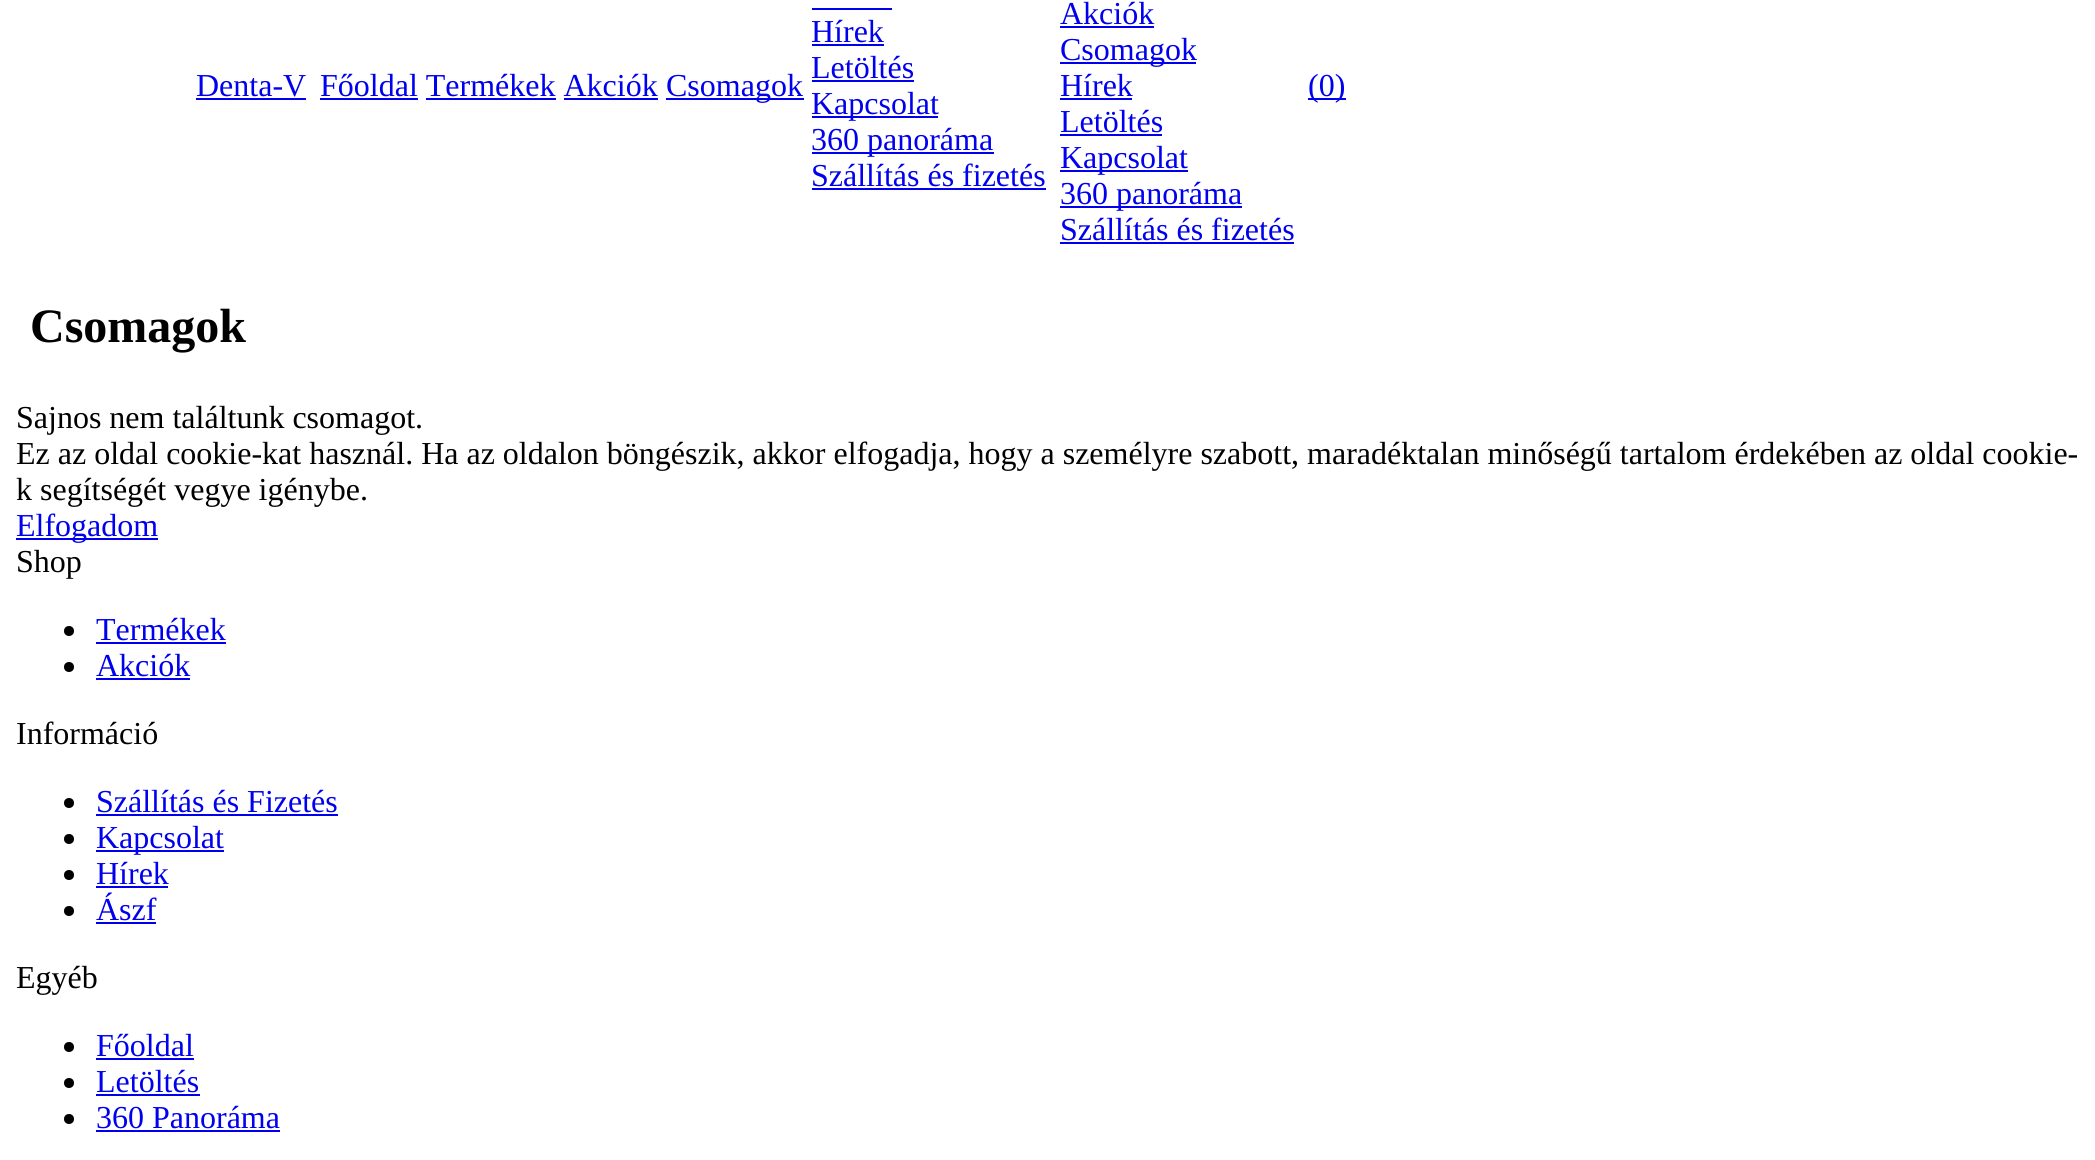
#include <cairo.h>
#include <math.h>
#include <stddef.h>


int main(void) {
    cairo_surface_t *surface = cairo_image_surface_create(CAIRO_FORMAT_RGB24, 2095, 1160);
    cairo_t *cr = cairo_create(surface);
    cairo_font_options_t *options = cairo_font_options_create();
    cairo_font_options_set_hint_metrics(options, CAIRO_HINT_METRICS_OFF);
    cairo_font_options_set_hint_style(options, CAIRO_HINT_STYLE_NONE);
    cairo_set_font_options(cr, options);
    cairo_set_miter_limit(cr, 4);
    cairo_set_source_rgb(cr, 1, 1, 1);
    cairo_paint(cr);
    cairo_select_font_face(cr, "Liberation Serif", CAIRO_FONT_SLANT_NORMAL, CAIRO_FONT_WEIGHT_NORMAL);
    cairo_set_font_size(cr, 32);
    cairo_set_source_rgb(cr, 0, 0, 0.933);
    cairo_move_to(cr, 196, 96);
    cairo_show_text(cr, "Denta-V");
    cairo_rectangle(cr, 196, 98, 110, 2);
    cairo_fill(cr);
    cairo_move_to(cr, 320, 96);
    cairo_show_text(cr, "Főoldal Termékek Akciók");
    cairo_rectangle(cr, 320, 98, 98, 2);
    cairo_fill(cr);
    cairo_rectangle(cr, 666, 98, 138, 2);
    cairo_fill(cr);
    cairo_move_to(cr, 666, 96);
    cairo_show_text(cr, "Csomagok");
    cairo_rectangle(cr, 812, 8, 80, 2);
    cairo_fill(cr);
    cairo_move_to(cr, 811, 42);
    cairo_show_text(cr, "Hírek");
    cairo_rectangle(cr, 812, 44, 72, 2);
    cairo_fill(cr);
    cairo_move_to(cr, 811, 78);
    cairo_show_text(cr, "Letöltés");
    cairo_rectangle(cr, 812, 80, 102, 2);
    cairo_fill(cr);
    cairo_rectangle(cr, 812, 116, 126, 2);
    cairo_fill(cr);
    cairo_move_to(cr, 811, 114);
    cairo_show_text(cr, "Kapcsolat");
    cairo_rectangle(cr, 812, 152, 182, 2);
    cairo_fill(cr);
    cairo_move_to(cr, 811, 150);
    cairo_show_text(cr, "360 panoráma");
    cairo_move_to(cr, 811, 186);
    cairo_show_text(cr, "Szállítás és fizetés");
    cairo_rectangle(cr, 812, 188, 234, 2);
    cairo_fill(cr);
    cairo_rectangle(cr, 426, 98, 130, 2);
    cairo_fill(cr);
    cairo_rectangle(cr, 564, 98, 94, 2);
    cairo_fill(cr);
    cairo_move_to(cr, 1060, 24);
    cairo_show_text(cr, "Akciók");
    cairo_rectangle(cr, 1060, 26, 94, 2);
    cairo_fill(cr);
    cairo_rectangle(cr, 1060, 62, 136, 2);
    cairo_fill(cr);
    cairo_move_to(cr, 1060, 60);
    cairo_show_text(cr, "Csomagok");
    cairo_move_to(cr, 1060, 96);
    cairo_show_text(cr, "Hírek");
    cairo_rectangle(cr, 1060, 98, 72, 2);
    cairo_fill(cr);
    cairo_move_to(cr, 1060, 132);
    cairo_show_text(cr, "Letöltés");
    cairo_rectangle(cr, 1060, 134, 102, 2);
    cairo_fill(cr);
    cairo_rectangle(cr, 1060, 170, 128, 2);
    cairo_fill(cr);
    cairo_move_to(cr, 1060, 168);
    cairo_show_text(cr, "Kapcsolat");
    cairo_rectangle(cr, 1060, 206, 182, 2);
    cairo_fill(cr);
    cairo_move_to(cr, 1060, 204);
    cairo_show_text(cr, "360 panoráma");
    cairo_move_to(cr, 1060, 240);
    cairo_show_text(cr, "Szállítás és fizetés");
    cairo_rectangle(cr, 1060, 242, 234, 2);
    cairo_fill(cr);
    cairo_rectangle(cr, 1308, 98, 38, 2);
    cairo_fill(cr);
    cairo_move_to(cr, 1308, 96);
    cairo_show_text(cr, "(0)");
    cairo_select_font_face(cr, "Liberation Serif", CAIRO_FONT_SLANT_NORMAL, CAIRO_FONT_WEIGHT_BOLD);
    cairo_set_font_size(cr, 48);
    cairo_set_source_rgb(cr, 0, 0, 0);
    cairo_move_to(cr, 30, 342);
    cairo_show_text(cr, "Csomagok");
    cairo_select_font_face(cr, "Liberation Serif", CAIRO_FONT_SLANT_NORMAL, CAIRO_FONT_WEIGHT_NORMAL);
    cairo_set_font_size(cr, 32);
    cairo_move_to(cr, 16, 428);
    cairo_show_text(cr, "Sajnos nem találtunk csomagot.");
    cairo_move_to(cr, 16, 464);
    cairo_show_text(cr, "Ez az oldal cookie-kat használ. Ha az oldalon böngészik, akkor elfogadja, hogy a személyre szabott, maradéktalan minőségű tartalom érdekében az oldal cookie-");
    cairo_move_to(cr, 16, 500);
    cairo_show_text(cr, "k segítségét vegye igénybe.");
    cairo_set_source_rgb(cr, 0, 0, 0.933);
    cairo_rectangle(cr, 16, 538, 142, 2);
    cairo_fill(cr);
    cairo_move_to(cr, 16, 536);
    cairo_show_text(cr, "Elfogadom");
    cairo_set_source_rgb(cr, 0, 0, 0);
    cairo_move_to(cr, 16, 572);
    cairo_show_text(cr, "Shop");
    cairo_new_path(cr);
    cairo_arc(cr, 69, 631, 5, 0, 2 * M_PI);
    cairo_fill(cr);
    cairo_set_source_rgb(cr, 0, 0, 0.933);
    cairo_move_to(cr, 96, 640);
    cairo_show_text(cr, "Termékek");
    cairo_rectangle(cr, 96, 642, 130, 2);
    cairo_fill(cr);
    cairo_set_source_rgb(cr, 0, 0, 0);
    cairo_arc(cr, 69, 667, 5, 0, 2 * M_PI);
    cairo_fill(cr);
    cairo_set_source_rgb(cr, 0, 0, 0.933);
    cairo_move_to(cr, 96, 676);
    cairo_show_text(cr, "Akciók");
    cairo_rectangle(cr, 96, 678, 94, 2);
    cairo_fill(cr);
    cairo_set_source_rgb(cr, 0, 0, 0);
    cairo_move_to(cr, 16, 744);
    cairo_show_text(cr, "Információ");
    cairo_new_path(cr);
    cairo_arc(cr, 69, 803, 5, 0, 2 * M_PI);
    cairo_fill(cr);
    cairo_set_source_rgb(cr, 0, 0, 0.933);
    cairo_move_to(cr, 96, 812);
    cairo_show_text(cr, "Szállítás és Fizetés");
    cairo_rectangle(cr, 96, 814, 242, 2);
    cairo_fill(cr);
    cairo_set_source_rgb(cr, 0, 0, 0);
    cairo_arc(cr, 69, 839, 5, 0, 2 * M_PI);
    cairo_fill(cr);
    cairo_set_source_rgb(cr, 0, 0, 0.933);
    cairo_rectangle(cr, 96, 850, 128, 2);
    cairo_fill(cr);
    cairo_move_to(cr, 96, 848);
    cairo_show_text(cr, "Kapcsolat");
    cairo_set_source_rgb(cr, 0, 0, 0);
    cairo_new_path(cr);
    cairo_arc(cr, 69, 875, 5, 0, 2 * M_PI);
    cairo_fill(cr);
    cairo_set_source_rgb(cr, 0, 0, 0.933);
    cairo_move_to(cr, 96, 884);
    cairo_show_text(cr, "Hírek");
    cairo_rectangle(cr, 96, 886, 72, 2);
    cairo_fill(cr);
    cairo_set_source_rgb(cr, 0, 0, 0);
    cairo_arc(cr, 69, 911, 5, 0, 2 * M_PI);
    cairo_fill(cr);
    cairo_set_source_rgb(cr, 0, 0, 0.933);
    cairo_move_to(cr, 96, 920);
    cairo_show_text(cr, "Ászf");
    cairo_rectangle(cr, 96, 922, 60, 2);
    cairo_fill(cr);
    cairo_set_source_rgb(cr, 0, 0, 0);
    cairo_move_to(cr, 16, 988);
    cairo_show_text(cr, "Egyéb");
    cairo_new_path(cr);
    cairo_arc(cr, 69, 1047, 5, 0, 2 * M_PI);
    cairo_fill(cr);
    cairo_set_source_rgb(cr, 0, 0, 0.933);
    cairo_move_to(cr, 96, 1056);
    cairo_show_text(cr, "Főoldal");
    cairo_rectangle(cr, 96, 1058, 98, 2);
    cairo_fill(cr);
    cairo_set_source_rgb(cr, 0, 0, 0);
    cairo_arc(cr, 69, 1083, 5, 0, 2 * M_PI);
    cairo_fill(cr);
    cairo_set_source_rgb(cr, 0, 0, 0.933);
    cairo_move_to(cr, 96, 1092);
    cairo_show_text(cr, "Letöltés");
    cairo_rectangle(cr, 96, 1094, 104, 2);
    cairo_fill(cr);
    cairo_set_source_rgb(cr, 0, 0, 0);
    cairo_arc(cr, 69, 1119, 5, 0, 2 * M_PI);
    cairo_fill(cr);
    cairo_set_source_rgb(cr, 0, 0, 0.933);
    cairo_move_to(cr, 96, 1128);
    cairo_show_text(cr, "360 Panoráma");
    cairo_rectangle(cr, 96, 1130, 184, 2);
    cairo_fill(cr);
    cairo_surface_write_to_png(surface, "page.png");
    cairo_font_options_destroy(options);
    cairo_destroy(cr);
    cairo_surface_destroy(surface);
    return 0;
}
